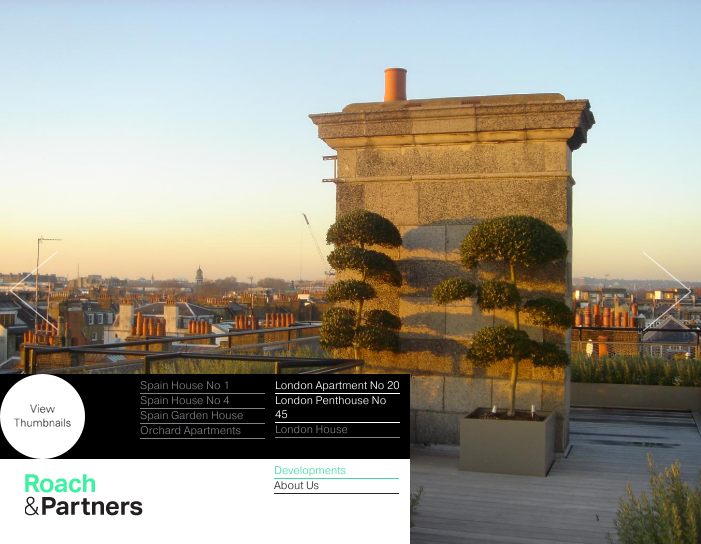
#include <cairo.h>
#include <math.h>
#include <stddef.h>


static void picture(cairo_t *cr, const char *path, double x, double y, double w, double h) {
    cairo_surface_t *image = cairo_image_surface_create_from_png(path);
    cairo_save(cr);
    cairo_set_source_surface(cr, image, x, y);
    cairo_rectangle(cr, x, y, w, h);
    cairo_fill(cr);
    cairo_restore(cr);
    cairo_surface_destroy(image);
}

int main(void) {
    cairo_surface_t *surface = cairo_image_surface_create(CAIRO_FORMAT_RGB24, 701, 544);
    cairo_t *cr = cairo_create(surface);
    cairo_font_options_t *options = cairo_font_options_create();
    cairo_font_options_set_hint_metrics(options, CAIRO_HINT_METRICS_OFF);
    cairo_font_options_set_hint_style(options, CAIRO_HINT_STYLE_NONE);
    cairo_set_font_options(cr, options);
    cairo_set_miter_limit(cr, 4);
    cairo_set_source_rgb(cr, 1, 1, 1);
    cairo_paint(cr);
    picture(cr, "img1.png", 0, 0, 701, 544);
    picture(cr, "img2.png", 10, 251, 48, 79);
    picture(cr, "img3.png", 643, 252, 48, 79);
    cairo_set_source_rgb(cr, 0, 0, 0);
    cairo_rectangle(cr, 85, 374, 325, 85);
    cairo_fill(cr);
    picture(cr, "img4.png", 0, 374, 85, 85);
    cairo_set_source_rgb(cr, 0.502, 0.506, 0.518);
    cairo_rectangle(cr, 140, 393, 125, 1);
    cairo_fill(cr);
    cairo_select_font_face(cr, "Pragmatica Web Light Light", CAIRO_FONT_SLANT_NORMAL, CAIRO_FONT_WEIGHT_NORMAL);
    cairo_set_font_size(cr, 11);
    cairo_move_to(cr, 140, 389);
    cairo_show_text(cr, "Spain House No 1");
    cairo_rectangle(cr, 140, 408, 125, 1);
    cairo_fill(cr);
    cairo_move_to(cr, 140, 404);
    cairo_show_text(cr, "Spain House No 4");
    cairo_rectangle(cr, 140, 423, 125, 1);
    cairo_fill(cr);
    cairo_move_to(cr, 140, 419);
    cairo_show_text(cr, "Spain Garden House");
    cairo_rectangle(cr, 140, 438, 125, 1);
    cairo_fill(cr);
    cairo_move_to(cr, 140, 434);
    cairo_show_text(cr, "Orchard Apartments");
    cairo_set_source_rgb(cr, 1, 1, 1);
    cairo_rectangle(cr, 275, 393, 125, 1);
    cairo_fill(cr);
    cairo_move_to(cr, 275, 389);
    cairo_show_text(cr, "London Apartment No 20");
    cairo_rectangle(cr, 275, 422, 125, 1);
    cairo_fill(cr);
    cairo_move_to(cr, 275, 404);
    cairo_show_text(cr, "London Penthouse No");
    cairo_move_to(cr, 275, 418);
    cairo_show_text(cr, "45");
    cairo_set_source_rgb(cr, 0.502, 0.506, 0.518);
    cairo_rectangle(cr, 275, 437, 125, 1);
    cairo_fill(cr);
    cairo_move_to(cr, 275, 433);
    cairo_show_text(cr, "London House");
    cairo_set_source_rgb(cr, 1, 1, 1);
    cairo_rectangle(cr, 0, 459, 410, 85);
    cairo_fill(cr);
    picture(cr, "img5.png", 25, 474, 118, 42);
    cairo_set_source_rgb(cr, 0.247, 0.855, 0.635);
    cairo_rectangle(cr, 274, 478, 125, 1);
    cairo_fill(cr);
    cairo_move_to(cr, 274, 474);
    cairo_show_text(cr, "Developments");
    cairo_set_source_rgb(cr, 0.153, 0.145, 0.145);
    cairo_rectangle(cr, 274, 493, 125, 1);
    cairo_fill(cr);
    cairo_move_to(cr, 274, 489);
    cairo_show_text(cr, "About Us");
    cairo_surface_write_to_png(surface, "page.png");
    cairo_font_options_destroy(options);
    cairo_destroy(cr);
    cairo_surface_destroy(surface);
    return 0;
}
